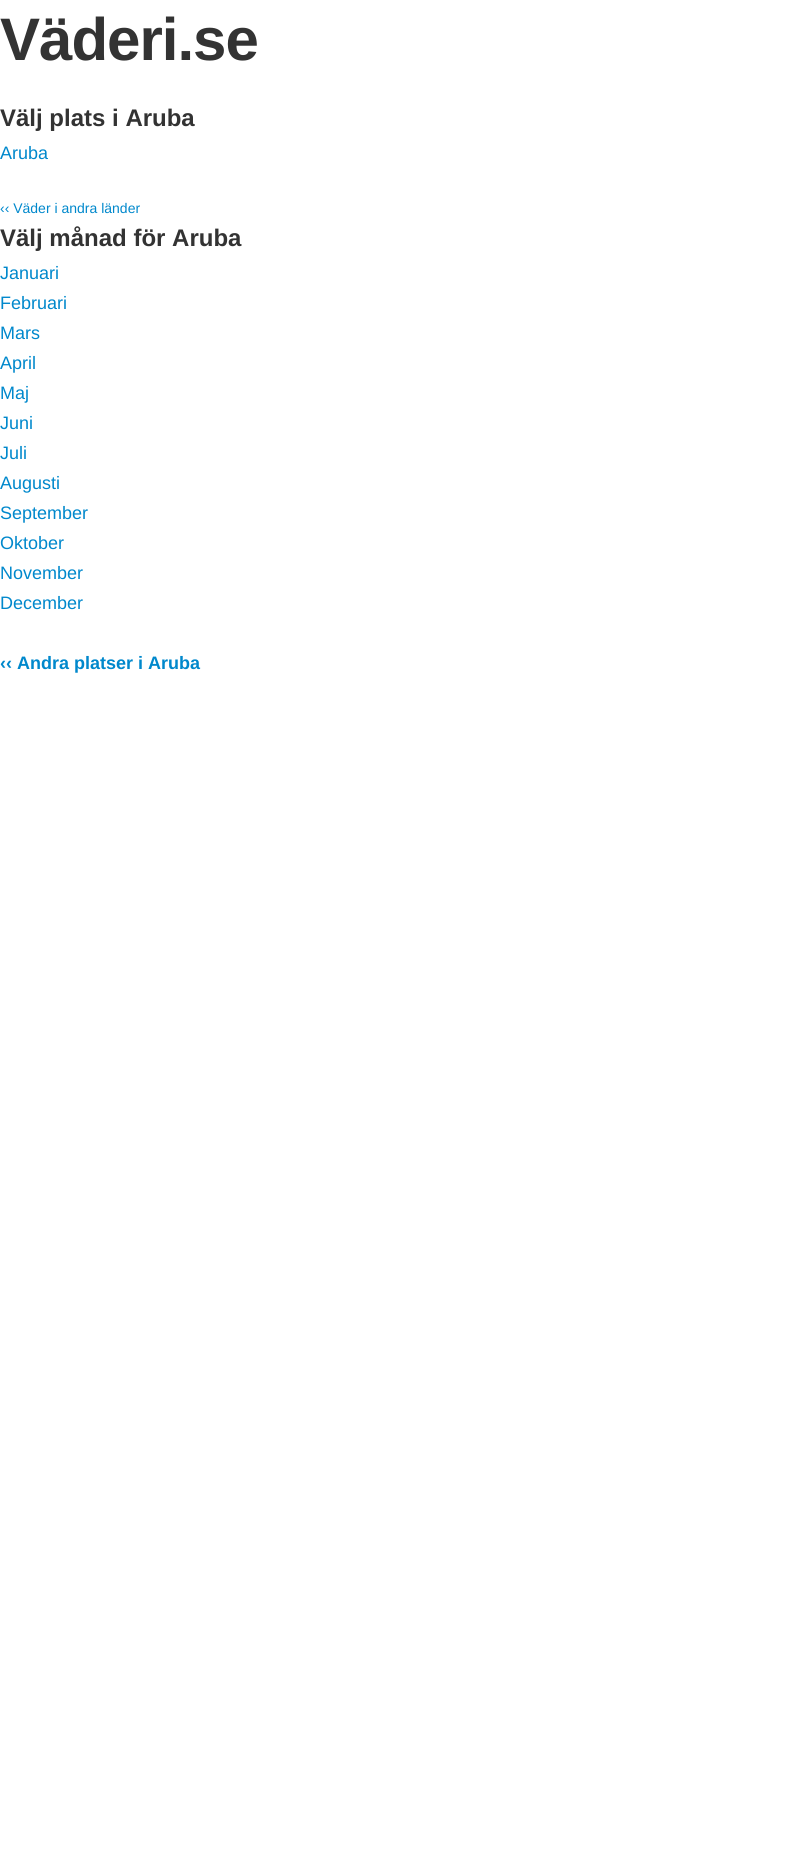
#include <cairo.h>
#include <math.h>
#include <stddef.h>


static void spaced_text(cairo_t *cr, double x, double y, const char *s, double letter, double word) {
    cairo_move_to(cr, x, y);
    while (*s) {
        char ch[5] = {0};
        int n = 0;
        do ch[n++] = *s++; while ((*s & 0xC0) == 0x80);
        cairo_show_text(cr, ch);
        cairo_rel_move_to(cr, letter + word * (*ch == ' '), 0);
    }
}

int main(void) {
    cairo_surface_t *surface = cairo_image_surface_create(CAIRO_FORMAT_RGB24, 810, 1855);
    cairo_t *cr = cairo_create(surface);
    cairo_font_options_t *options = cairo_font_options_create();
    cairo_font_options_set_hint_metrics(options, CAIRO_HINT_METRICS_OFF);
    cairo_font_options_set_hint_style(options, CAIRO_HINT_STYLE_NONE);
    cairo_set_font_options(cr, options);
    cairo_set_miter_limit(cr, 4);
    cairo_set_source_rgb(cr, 1, 1, 1);
    cairo_paint(cr);
    cairo_select_font_face(cr, "Liberation Sans", CAIRO_FONT_SLANT_NORMAL, CAIRO_FONT_WEIGHT_BOLD);
    cairo_set_font_size(cr, 60);
    cairo_set_source_rgb(cr, 0.2, 0.2, 0.2);
    spaced_text(cr, 0, 60, "Väderi.se", -1, 0);
    cairo_set_font_size(cr, 24);
    cairo_move_to(cr, 0, 126);
    cairo_show_text(cr, "Välj plats i Aruba");
    cairo_select_font_face(cr, "Liberation Sans", CAIRO_FONT_SLANT_NORMAL, CAIRO_FONT_WEIGHT_NORMAL);
    cairo_set_font_size(cr, 18);
    cairo_set_source_rgb(cr, 0, 0.533, 0.8);
    cairo_move_to(cr, 0, 159);
    cairo_show_text(cr, "Aruba");
    cairo_set_font_size(cr, 14);
    cairo_move_to(cr, 0, 213);
    cairo_show_text(cr, "‹‹ Väder i andra länder");
    cairo_select_font_face(cr, "Liberation Sans", CAIRO_FONT_SLANT_NORMAL, CAIRO_FONT_WEIGHT_BOLD);
    cairo_set_font_size(cr, 24);
    cairo_set_source_rgb(cr, 0.2, 0.2, 0.2);
    cairo_move_to(cr, 0, 246);
    cairo_show_text(cr, "Välj månad för Aruba");
    cairo_select_font_face(cr, "Liberation Sans", CAIRO_FONT_SLANT_NORMAL, CAIRO_FONT_WEIGHT_NORMAL);
    cairo_set_font_size(cr, 18);
    cairo_set_source_rgb(cr, 0, 0.533, 0.8);
    cairo_move_to(cr, 0, 279);
    cairo_show_text(cr, "Januari");
    cairo_move_to(cr, 0, 309);
    cairo_show_text(cr, "Februari");
    cairo_move_to(cr, 0, 339);
    cairo_show_text(cr, "Mars");
    cairo_move_to(cr, 0, 369);
    cairo_show_text(cr, "April");
    cairo_move_to(cr, 0, 399);
    cairo_show_text(cr, "Maj");
    cairo_move_to(cr, 0, 429);
    cairo_show_text(cr, "Juni");
    cairo_move_to(cr, 0, 459);
    cairo_show_text(cr, "Juli");
    cairo_move_to(cr, 0, 489);
    cairo_show_text(cr, "Augusti");
    cairo_move_to(cr, 0, 519);
    cairo_show_text(cr, "September");
    cairo_move_to(cr, 0, 549);
    cairo_show_text(cr, "Oktober");
    cairo_move_to(cr, 0, 579);
    cairo_show_text(cr, "November");
    cairo_move_to(cr, 0, 609);
    cairo_show_text(cr, "December");
    cairo_select_font_face(cr, "Liberation Sans", CAIRO_FONT_SLANT_NORMAL, CAIRO_FONT_WEIGHT_BOLD);
    cairo_move_to(cr, 0, 669);
    cairo_show_text(cr, "‹‹ Andra platser i Aruba");
    cairo_surface_write_to_png(surface, "page.png");
    cairo_font_options_destroy(options);
    cairo_destroy(cr);
    cairo_surface_destroy(surface);
    return 0;
}
